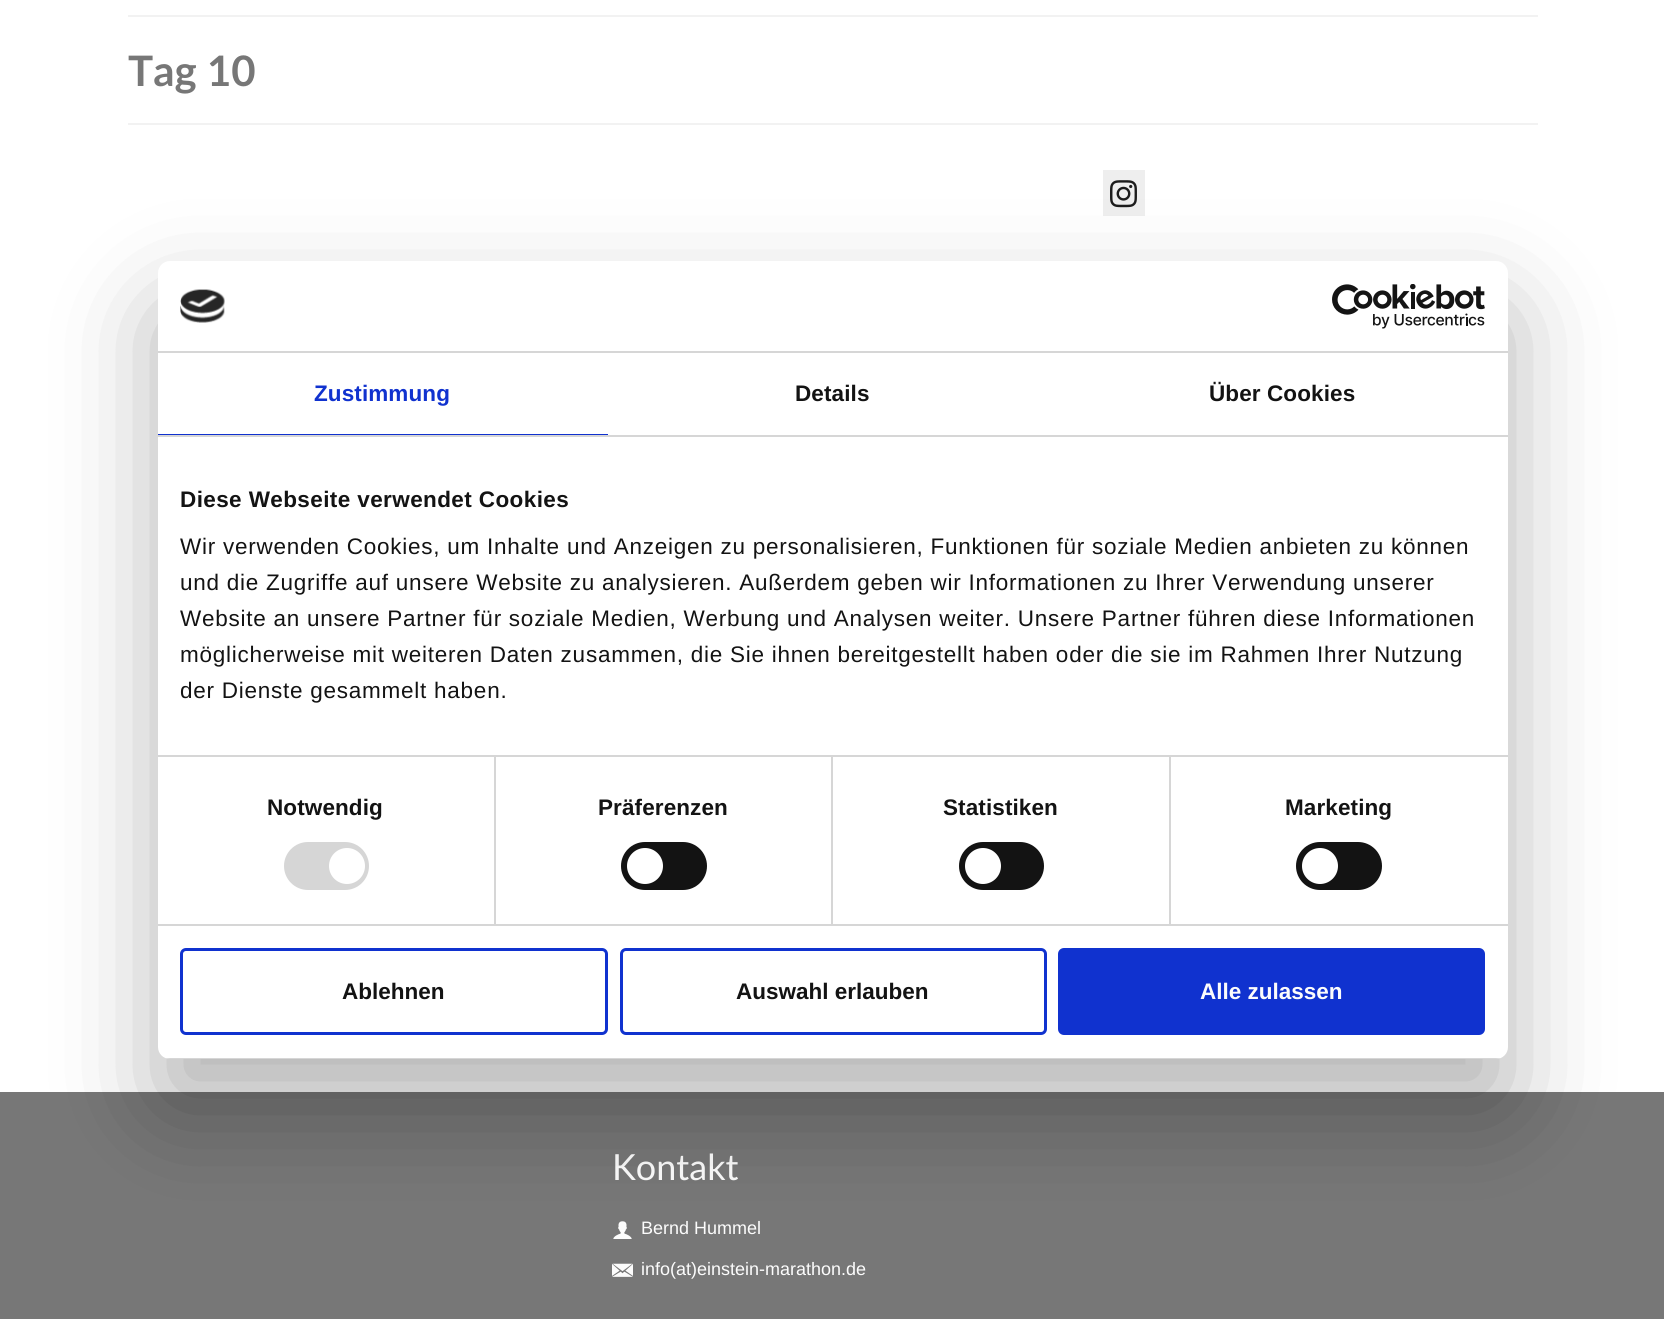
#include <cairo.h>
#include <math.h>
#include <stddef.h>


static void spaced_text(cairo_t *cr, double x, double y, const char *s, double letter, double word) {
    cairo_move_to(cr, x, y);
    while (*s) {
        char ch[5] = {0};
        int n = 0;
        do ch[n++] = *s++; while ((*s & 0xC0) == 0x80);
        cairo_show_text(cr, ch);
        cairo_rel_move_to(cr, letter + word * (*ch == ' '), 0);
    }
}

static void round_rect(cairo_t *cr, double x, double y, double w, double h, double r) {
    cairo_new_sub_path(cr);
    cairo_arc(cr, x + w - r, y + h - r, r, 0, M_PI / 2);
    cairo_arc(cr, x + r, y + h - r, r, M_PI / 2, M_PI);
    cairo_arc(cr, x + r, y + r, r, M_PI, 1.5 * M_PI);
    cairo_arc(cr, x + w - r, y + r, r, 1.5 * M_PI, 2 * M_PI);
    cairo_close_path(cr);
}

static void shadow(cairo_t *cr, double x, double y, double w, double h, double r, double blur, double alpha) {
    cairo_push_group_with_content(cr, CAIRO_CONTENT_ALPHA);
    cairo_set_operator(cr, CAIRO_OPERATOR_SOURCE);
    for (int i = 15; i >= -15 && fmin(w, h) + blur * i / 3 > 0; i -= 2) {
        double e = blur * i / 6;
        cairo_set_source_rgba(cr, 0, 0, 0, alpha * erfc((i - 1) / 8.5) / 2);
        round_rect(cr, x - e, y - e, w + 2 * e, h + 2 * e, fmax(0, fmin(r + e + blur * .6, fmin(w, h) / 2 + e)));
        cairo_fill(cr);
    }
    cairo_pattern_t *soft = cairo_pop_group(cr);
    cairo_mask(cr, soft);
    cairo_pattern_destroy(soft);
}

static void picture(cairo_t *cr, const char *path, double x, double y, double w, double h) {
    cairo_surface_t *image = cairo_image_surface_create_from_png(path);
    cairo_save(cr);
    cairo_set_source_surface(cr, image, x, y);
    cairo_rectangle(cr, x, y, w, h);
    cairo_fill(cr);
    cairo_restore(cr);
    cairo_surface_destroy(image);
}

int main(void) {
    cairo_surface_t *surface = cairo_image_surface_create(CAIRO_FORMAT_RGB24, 1664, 1319);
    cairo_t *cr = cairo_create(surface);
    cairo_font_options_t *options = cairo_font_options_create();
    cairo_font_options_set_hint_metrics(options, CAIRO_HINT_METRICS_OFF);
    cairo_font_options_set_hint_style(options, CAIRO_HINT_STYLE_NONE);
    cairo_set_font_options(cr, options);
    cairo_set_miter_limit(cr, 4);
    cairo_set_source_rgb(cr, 1, 1, 1);
    cairo_paint(cr);
    cairo_set_source_rgb(cr, 0.949, 0.949, 0.949);
    cairo_rectangle(cr, 128, 15, 1410, 2);
    cairo_fill(cr);
    cairo_rectangle(cr, 128, 123, 1410, 2);
    cairo_fill(cr);
    cairo_select_font_face(cr, "Lato", CAIRO_FONT_SLANT_NORMAL, CAIRO_FONT_WEIGHT_BOLD);
    cairo_set_font_size(cr, 42);
    cairo_set_source_rgb(cr, 0.467, 0.467, 0.467);
    cairo_move_to(cr, 128, 86);
    cairo_show_text(cr, "Tag 10");
    cairo_set_source_rgb(cr, 0.933, 0.933, 0.933);
    cairo_rectangle(cr, 1103, 170, 42, 46);
    cairo_fill(cr);
    picture(cr, "img1.png", 1110, 180, 27, 28);
    cairo_set_source_rgb(cr, 0.467, 0.467, 0.467);
    cairo_rectangle(cr, 0, 1092, 1664, 227);
    cairo_fill(cr);
    cairo_select_font_face(cr, "Lato", CAIRO_FONT_SLANT_NORMAL, CAIRO_FONT_WEIGHT_NORMAL);
    cairo_set_font_size(cr, 36);
    cairo_set_source_rgb(cr, 0.988, 0.988, 0.988);
    cairo_move_to(cr, 612, 1180);
    cairo_show_text(cr, "Kontakt");
    picture(cr, "img2.png", 613, 1221, 19, 18);
    cairo_select_font_face(cr, "Liberation Sans", CAIRO_FONT_SLANT_NORMAL, CAIRO_FONT_WEIGHT_NORMAL);
    cairo_set_font_size(cr, 18);
    cairo_move_to(cr, 641, 1234);
    cairo_show_text(cr, "Bernd Hummel");
    picture(cr, "img3.png", 612, 1263, 21, 14);
    cairo_move_to(cr, 641, 1275);
    cairo_show_text(cr, "info(at)einstein-marathon.de");
    cairo_set_source_rgb(cr, 0, 0, 0);
    shadow(cr, 158, 309, 1350, 798, 12, 51, 0.3);
    cairo_set_source_rgb(cr, 1, 1, 1);
    round_rect(cr, 158, 261, 1350, 798, 12);
    cairo_fill(cr);
    cairo_set_source_rgb(cr, 0.839, 0.839, 0.839);
    cairo_rectangle(cr, 158, 351, 1350, 2);
    cairo_fill(cr);
    picture(cr, "img4.png", 180, 289, 45, 34);
    picture(cr, "img5.png", 1332, 284, 153, 45);
    cairo_rectangle(cr, 158, 435, 1350, 2);
    cairo_fill(cr);
    cairo_set_source_rgb(cr, 0.063, 0.196, 0.812);
    cairo_rectangle(cr, 158, 434, 450, 1);
    cairo_fill(cr);
    cairo_select_font_face(cr, "Liberation Sans", CAIRO_FONT_SLANT_NORMAL, CAIRO_FONT_WEIGHT_BOLD);
    cairo_set_font_size(cr, 22.5);
    spaced_text(cr, 314, 401, "Zustimmung", 0.1, 0);
    cairo_set_source_rgb(cr, 0.078, 0.078, 0.078);
    spaced_text(cr, 795, 401, "Details", 0.1, 0);
    spaced_text(cr, 1209, 401, "Über Cookies", 0.1, 0);
    cairo_set_source_rgb(cr, 0.839, 0.839, 0.839);
    cairo_rectangle(cr, 494, 756, 2, 168);
    cairo_fill(cr);
    cairo_rectangle(cr, 831, 756, 2, 168);
    cairo_fill(cr);
    cairo_rectangle(cr, 1169, 756, 2, 168);
    cairo_fill(cr);
    cairo_rectangle(cr, 158, 755, 1350, 2);
    cairo_fill(cr);
    cairo_set_source_rgb(cr, 0.078, 0.078, 0.078);
    spaced_text(cr, 180, 507, "Diese Webseite verwendet Cookies", 0.4, 0);
    cairo_select_font_face(cr, "Liberation Sans", CAIRO_FONT_SLANT_NORMAL, CAIRO_FONT_WEIGHT_NORMAL);
    spaced_text(cr, 180, 554, "Wir verwenden Cookies, um Inhalte und Anzeigen zu personalisieren, Funktionen für soziale Medien anbieten zu können", 0.75, 0);
    spaced_text(cr, 180, 590, "und die Zugriffe auf unsere Website zu analysieren. Außerdem geben wir Informationen zu Ihrer Verwendung unserer", 0.75, 0);
    spaced_text(cr, 180, 626, "Website an unsere Partner für soziale Medien, Werbung und Analysen weiter. Unsere Partner führen diese Informationen", 0.75, 0);
    spaced_text(cr, 180, 662, "möglicherweise mit weiteren Daten zusammen, die Sie ihnen bereitgestellt haben oder die sie im Rahmen Ihrer Nutzung", 0.75, 0);
    spaced_text(cr, 180, 698, "der Dienste gesammelt haben.", 0.75, 0);
    cairo_set_source_rgb(cr, 0.839, 0.839, 0.839);
    cairo_rectangle(cr, 158, 924, 1350, 2);
    cairo_fill(cr);
    cairo_select_font_face(cr, "Liberation Sans", CAIRO_FONT_SLANT_NORMAL, CAIRO_FONT_WEIGHT_BOLD);
    cairo_set_source_rgb(cr, 0.078, 0.078, 0.078);
    spaced_text(cr, 267, 815, "Notwendig", 0.1, 0);
    cairo_set_source_rgb(cr, 0.839, 0.839, 0.839);
    round_rect(cr, 284, 842, 85, 48, 24);
    cairo_fill(cr);
    cairo_set_source_rgb(cr, 1, 1, 1);
    cairo_arc(cr, 347, 866, 18, 0, 2 * M_PI);
    cairo_fill(cr);
    cairo_set_source_rgb(cr, 0.078, 0.078, 0.078);
    spaced_text(cr, 598, 815, "Präferenzen", 0.1, 0);
    round_rect(cr, 621, 842, 86, 48, 24);
    cairo_fill(cr);
    cairo_set_source_rgb(cr, 1, 1, 1);
    cairo_arc(cr, 645, 866, 18, 0, 2 * M_PI);
    cairo_fill(cr);
    cairo_set_source_rgb(cr, 0.078, 0.078, 0.078);
    spaced_text(cr, 943, 815, "Statistiken", 0.1, 0);
    round_rect(cr, 959, 842, 85, 48, 24);
    cairo_fill(cr);
    cairo_set_source_rgb(cr, 1, 1, 1);
    cairo_arc(cr, 983, 866, 18, 0, 2 * M_PI);
    cairo_fill(cr);
    cairo_set_source_rgb(cr, 0.078, 0.078, 0.078);
    spaced_text(cr, 1285, 815, "Marketing", 0.1, 0);
    round_rect(cr, 1296, 842, 86, 48, 24);
    cairo_fill(cr);
    cairo_set_source_rgb(cr, 1, 1, 1);
    cairo_arc(cr, 1320, 866, 18, 0, 2 * M_PI);
    cairo_fill(cr);
    cairo_save(cr);
    round_rect(cr, 158, 261, 1350, 798, 12);
    cairo_clip(cr);
    cairo_set_source_rgb(cr, 0.839, 0.839, 0.839);
    cairo_rectangle(cr, 158, 1058, 1350, 1);
    cairo_fill(cr);
    cairo_restore(cr);
    round_rect(cr, 181.5, 949.5, 425, 84, 4.5);
    cairo_set_source_rgb(cr, 0.063, 0.196, 0.812);
    cairo_set_line_width(cr, 3);
    cairo_stroke(cr);
    cairo_set_source_rgb(cr, 0.078, 0.078, 0.078);
    cairo_move_to(cr, 342, 999);
    cairo_show_text(cr, "Ablehnen");
    round_rect(cr, 621.5, 949.5, 424, 84, 4.5);
    cairo_set_source_rgb(cr, 0.063, 0.196, 0.812);
    cairo_stroke(cr);
    cairo_set_source_rgb(cr, 0.078, 0.078, 0.078);
    cairo_move_to(cr, 736, 999);
    cairo_show_text(cr, "Auswahl erlauben");
    cairo_set_source_rgb(cr, 0.063, 0.196, 0.812);
    round_rect(cr, 1059.5, 949.5, 424, 84, 4.5);
    cairo_fill_preserve(cr);
    cairo_stroke(cr);
    cairo_set_source_rgb(cr, 0.988, 0.988, 0.988);
    cairo_move_to(cr, 1200, 999);
    cairo_show_text(cr, "Alle zulassen");
    cairo_surface_write_to_png(surface, "page.png");
    cairo_font_options_destroy(options);
    cairo_destroy(cr);
    cairo_surface_destroy(surface);
    return 0;
}
